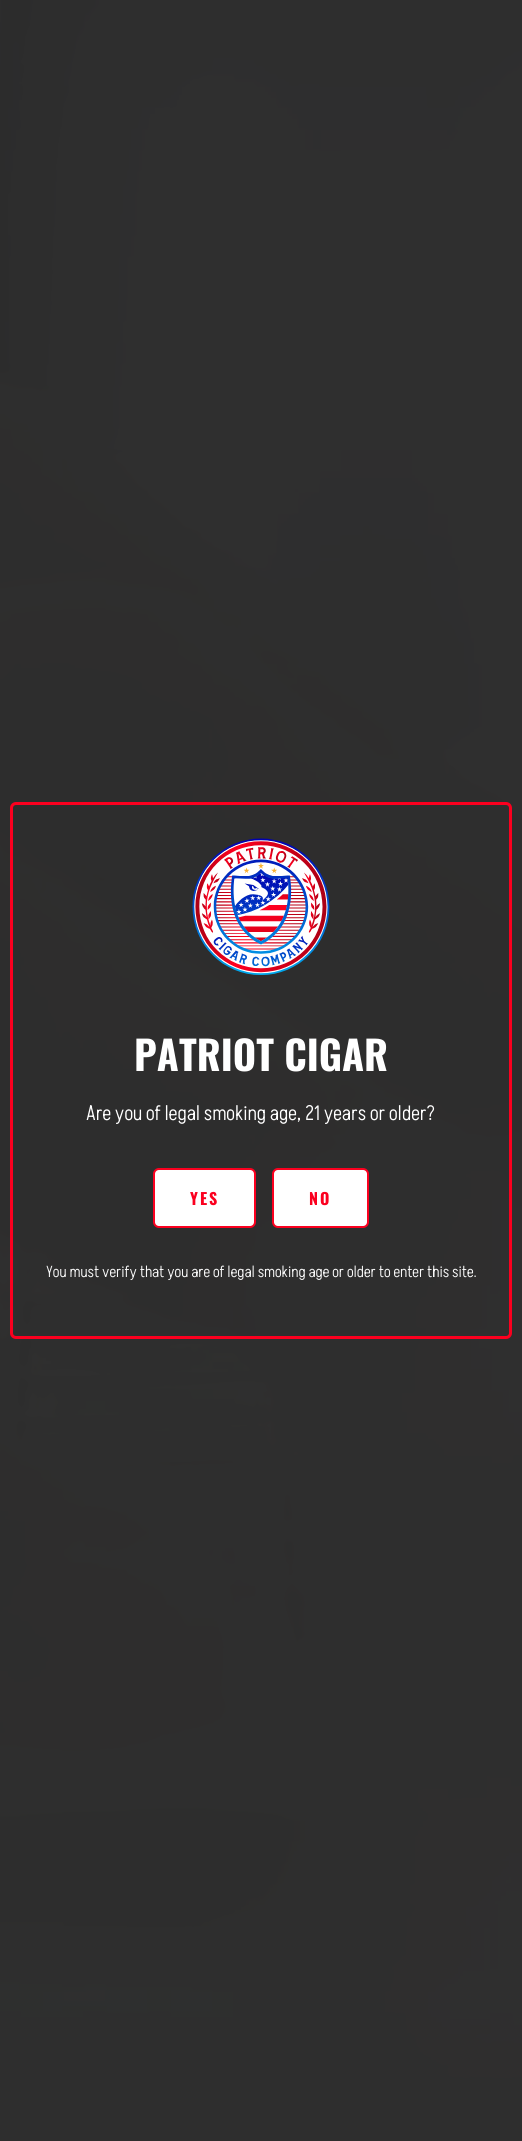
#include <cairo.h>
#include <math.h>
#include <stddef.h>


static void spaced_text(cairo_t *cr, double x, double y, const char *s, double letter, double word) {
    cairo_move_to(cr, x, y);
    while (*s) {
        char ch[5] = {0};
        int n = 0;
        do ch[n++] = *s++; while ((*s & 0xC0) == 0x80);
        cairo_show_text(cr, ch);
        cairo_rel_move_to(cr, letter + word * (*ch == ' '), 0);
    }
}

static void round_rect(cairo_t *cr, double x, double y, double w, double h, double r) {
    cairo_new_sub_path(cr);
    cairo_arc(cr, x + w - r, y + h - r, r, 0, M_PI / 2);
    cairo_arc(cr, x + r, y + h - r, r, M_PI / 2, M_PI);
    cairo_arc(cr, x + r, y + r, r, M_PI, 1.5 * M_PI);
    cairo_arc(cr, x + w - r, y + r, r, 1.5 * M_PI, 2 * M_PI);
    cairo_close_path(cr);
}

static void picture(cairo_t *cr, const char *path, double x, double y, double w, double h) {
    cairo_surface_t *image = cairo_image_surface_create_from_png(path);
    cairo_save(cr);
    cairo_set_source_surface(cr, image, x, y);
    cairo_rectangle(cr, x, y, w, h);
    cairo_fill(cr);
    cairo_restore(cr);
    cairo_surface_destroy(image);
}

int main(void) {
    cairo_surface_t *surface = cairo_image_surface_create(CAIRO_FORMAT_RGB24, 522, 2141);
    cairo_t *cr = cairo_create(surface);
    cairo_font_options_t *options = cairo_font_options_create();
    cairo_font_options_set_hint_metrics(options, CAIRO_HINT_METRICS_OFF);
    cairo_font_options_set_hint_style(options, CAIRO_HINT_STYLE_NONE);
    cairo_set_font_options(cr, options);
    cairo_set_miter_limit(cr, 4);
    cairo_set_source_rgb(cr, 1, 1, 1);
    cairo_paint(cr);
    picture(cr, "img1.png", 0, 0, 522, 2141);
    round_rect(cr, 11.5, 803.5, 499, 534, 4.5);
    cairo_set_source_rgb(cr, 0.984, 0, 0.122);
    cairo_set_line_width(cr, 3);
    cairo_stroke(cr);
    picture(cr, "img2.png", 192, 838, 138, 137);
    cairo_select_font_face(cr, "Oswald", CAIRO_FONT_SLANT_NORMAL, CAIRO_FONT_WEIGHT_BOLD);
    cairo_set_font_size(cr, 40);
    cairo_set_source_rgb(cr, 1, 1, 1);
    cairo_move_to(cr, 134, 1071);
    cairo_show_text(cr, "PATRIOT CIGAR");
    cairo_select_font_face(cr, "Akshar Light", CAIRO_FONT_SLANT_NORMAL, CAIRO_FONT_WEIGHT_NORMAL);
    cairo_set_font_size(cr, 20.75);
    cairo_move_to(cr, 86, 1120);
    cairo_show_text(cr, "Are you of legal smoking age, 21 years or older?");
    round_rect(cr, 154, 1169, 101, 58, 5);
    cairo_fill_preserve(cr);
    cairo_set_source_rgb(cr, 0.984, 0, 0.122);
    cairo_set_line_width(cr, 2);
    cairo_stroke(cr);
    cairo_select_font_face(cr, "Oswald", CAIRO_FONT_SLANT_NORMAL, CAIRO_FONT_WEIGHT_BOLD);
    cairo_set_font_size(cr, 16);
    spaced_text(cr, 190, 1205, "YES", 2, 0);
    cairo_set_source_rgb(cr, 1, 1, 1);
    round_rect(cr, 273, 1169, 95, 58, 5);
    cairo_fill_preserve(cr);
    cairo_set_source_rgb(cr, 0.984, 0, 0.122);
    cairo_stroke(cr);
    spaced_text(cr, 309, 1205, "NO", 2, 0);
    cairo_select_font_face(cr, "Akshar Light", CAIRO_FONT_SLANT_NORMAL, CAIRO_FONT_WEIGHT_NORMAL);
    cairo_set_source_rgb(cr, 0.969, 0.969, 0.969);
    cairo_move_to(cr, 46, 1277);
    cairo_show_text(cr, "You must verify that you are of legal smoking age or older to enter this site.");
    cairo_surface_write_to_png(surface, "page.png");
    cairo_font_options_destroy(options);
    cairo_destroy(cr);
    cairo_surface_destroy(surface);
    return 0;
}
